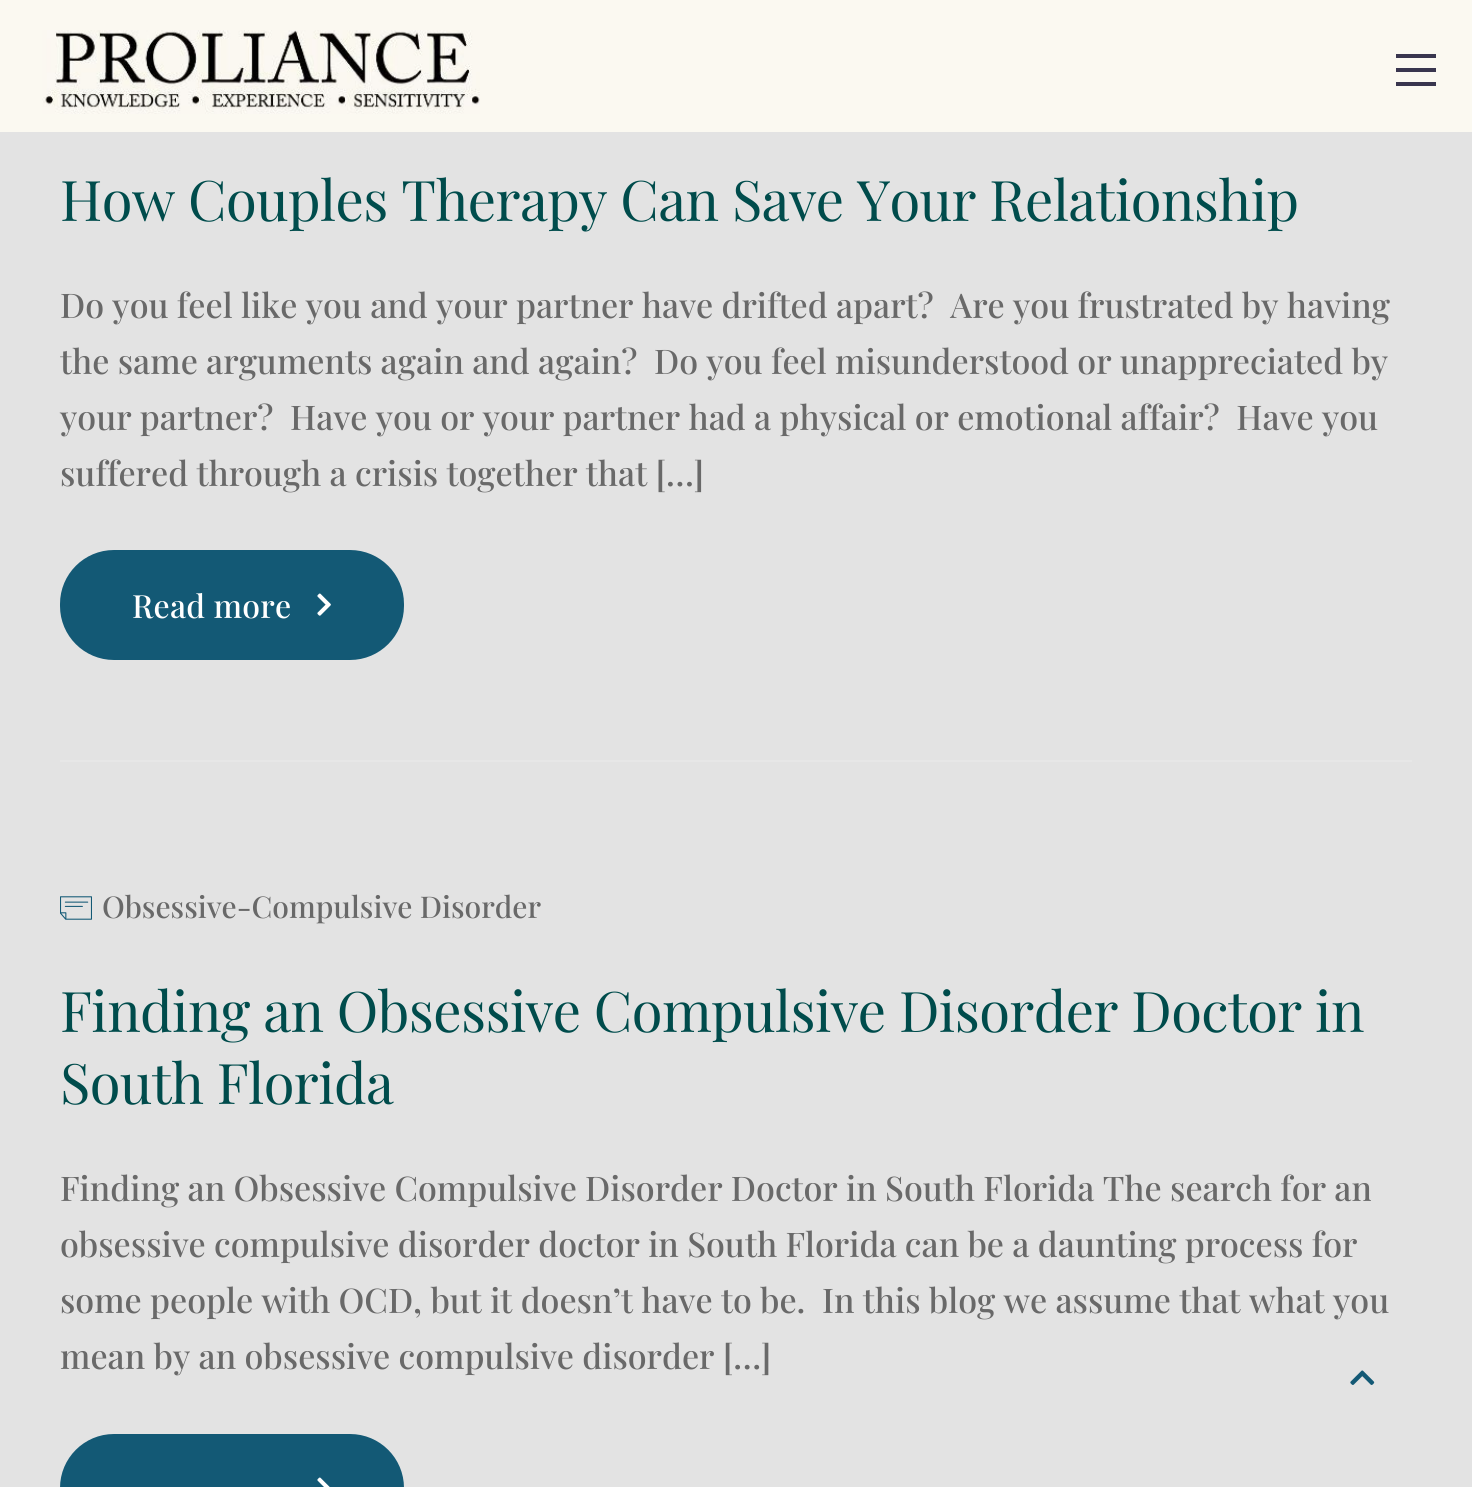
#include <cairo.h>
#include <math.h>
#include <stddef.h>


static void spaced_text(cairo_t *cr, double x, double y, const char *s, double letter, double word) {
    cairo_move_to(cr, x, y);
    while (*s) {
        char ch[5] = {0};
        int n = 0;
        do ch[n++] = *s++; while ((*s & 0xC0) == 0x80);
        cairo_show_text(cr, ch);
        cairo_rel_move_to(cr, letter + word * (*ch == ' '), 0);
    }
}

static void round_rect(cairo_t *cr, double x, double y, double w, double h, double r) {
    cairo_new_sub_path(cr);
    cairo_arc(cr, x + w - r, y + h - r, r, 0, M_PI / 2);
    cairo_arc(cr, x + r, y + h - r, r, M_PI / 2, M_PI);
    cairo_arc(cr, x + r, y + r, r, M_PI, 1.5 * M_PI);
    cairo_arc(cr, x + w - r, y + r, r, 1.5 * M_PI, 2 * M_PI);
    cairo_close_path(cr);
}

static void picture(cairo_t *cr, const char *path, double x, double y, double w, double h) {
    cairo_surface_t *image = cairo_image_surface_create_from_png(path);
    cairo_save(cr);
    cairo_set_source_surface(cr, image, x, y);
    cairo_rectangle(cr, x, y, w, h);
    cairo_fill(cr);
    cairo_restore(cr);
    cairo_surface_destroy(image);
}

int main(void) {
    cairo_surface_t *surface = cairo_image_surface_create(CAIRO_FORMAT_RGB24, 1472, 1487);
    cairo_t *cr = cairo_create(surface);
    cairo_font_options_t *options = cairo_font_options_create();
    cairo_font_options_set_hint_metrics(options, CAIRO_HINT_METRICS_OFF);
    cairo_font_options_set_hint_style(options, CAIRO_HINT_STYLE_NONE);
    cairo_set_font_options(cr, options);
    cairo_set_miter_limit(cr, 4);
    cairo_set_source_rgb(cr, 0.89, 0.89, 0.89);
    cairo_paint(cr);
    cairo_set_source_rgb(cr, 0.984, 0.973, 0.945);
    cairo_rectangle(cr, 0, 0, 1472, 132);
    cairo_fill(cr);
    picture(cr, "img1.png", 42, 30, 438, 84);
    cairo_set_source_rgb(cr, 0.224, 0.212, 0.306);
    cairo_rectangle(cr, 1396, 82, 40, 4);
    cairo_fill(cr);
    cairo_rectangle(cr, 1396, 54, 40, 4);
    cairo_fill(cr);
    cairo_rectangle(cr, 1396, 68, 40, 4);
    cairo_fill(cr);
    cairo_set_source_rgb(cr, 0.906, 0.906, 0.906);
    cairo_rectangle(cr, 60, 760, 1352, 2);
    cairo_fill(cr);
    cairo_select_font_face(cr, "Playfair Display", CAIRO_FONT_SLANT_NORMAL, CAIRO_FONT_WEIGHT_NORMAL);
    cairo_set_font_size(cr, 56);
    cairo_set_source_rgb(cr, 0, 0.298, 0.298);
    spaced_text(cr, 60, 221, "How Couples Therapy Can Save Your Relationship", -0.55, 0);
    cairo_select_font_face(cr, "Playfair Display Medium", CAIRO_FONT_SLANT_NORMAL, CAIRO_FONT_WEIGHT_NORMAL);
    cairo_set_font_size(cr, 34);
    cairo_set_source_rgb(cr, 0.412, 0.412, 0.412);
    cairo_move_to(cr, 60, 318);
    cairo_show_text(cr, "Do you feel like you and your partner have drifted apart?  Are you frustrated by having");
    cairo_move_to(cr, 60, 374);
    cairo_show_text(cr, "the same arguments again and again?  Do you feel misunderstood or unappreciated by");
    cairo_move_to(cr, 60, 430);
    cairo_show_text(cr, "your partner?  Have you or your partner had a physical or emotional affair?  Have you");
    cairo_move_to(cr, 60, 486);
    cairo_show_text(cr, "suffered through a crisis together that […]");
    cairo_set_source_rgb(cr, 0.075, 0.349, 0.459);
    round_rect(cr, 61, 551, 342, 108, 53);
    cairo_fill_preserve(cr);
    cairo_stroke(cr);
    cairo_set_font_size(cr, 32);
    cairo_set_source_rgb(cr, 1, 1, 1);
    spaced_text(cr, 132, 618, "Read more", 0.25, 0);
    picture(cr, "img2.png", 317, 593, 14, 23);
    picture(cr, "img3.png", 60, 896, 32, 24);
    cairo_set_font_size(cr, 30);
    cairo_set_source_rgb(cr, 0.412, 0.412, 0.412);
    cairo_move_to(cr, 102, 918);
    cairo_show_text(cr, "Obsessive-Compulsive Disorder");
    cairo_select_font_face(cr, "Playfair Display", CAIRO_FONT_SLANT_NORMAL, CAIRO_FONT_WEIGHT_NORMAL);
    cairo_set_font_size(cr, 56);
    cairo_set_source_rgb(cr, 0, 0.298, 0.298);
    spaced_text(cr, 60, 1032, "Finding an Obsessive Compulsive Disorder Doctor in", -0.55, 0);
    spaced_text(cr, 60, 1104, "South Florida", -0.55, 0);
    cairo_select_font_face(cr, "Playfair Display Medium", CAIRO_FONT_SLANT_NORMAL, CAIRO_FONT_WEIGHT_NORMAL);
    cairo_set_font_size(cr, 34);
    cairo_set_source_rgb(cr, 0.412, 0.412, 0.412);
    cairo_move_to(cr, 60, 1201);
    cairo_show_text(cr, "Finding an Obsessive Compulsive Disorder Doctor in South Florida The search for an");
    cairo_move_to(cr, 60, 1257);
    cairo_show_text(cr, "obsessive compulsive disorder doctor in South Florida can be a daunting process for");
    cairo_move_to(cr, 60, 1313);
    cairo_show_text(cr, "some people with OCD, but it doesn’t have to be.  In this blog we assume that what you");
    cairo_move_to(cr, 60, 1369);
    cairo_show_text(cr, "mean by an obsessive compulsive disorder […]");
    cairo_set_source_rgb(cr, 0.075, 0.349, 0.459);
    round_rect(cr, 61, 1435, 342, 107, 53);
    cairo_fill_preserve(cr);
    cairo_stroke(cr);
    picture(cr, "img4.png", 317, 1477, 13, 10);
    picture(cr, "img5.png", 1350, 1370, 25, 15);
    cairo_surface_write_to_png(surface, "page.png");
    cairo_font_options_destroy(options);
    cairo_destroy(cr);
    cairo_surface_destroy(surface);
    return 0;
}
